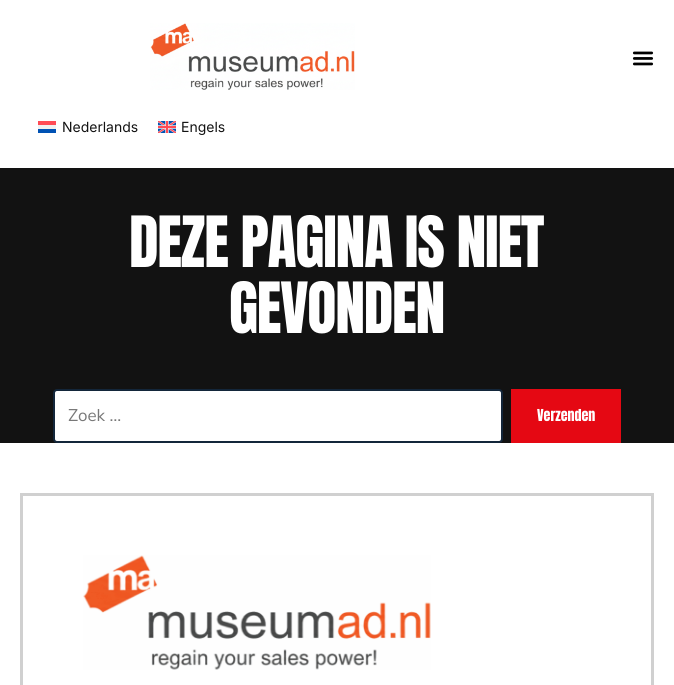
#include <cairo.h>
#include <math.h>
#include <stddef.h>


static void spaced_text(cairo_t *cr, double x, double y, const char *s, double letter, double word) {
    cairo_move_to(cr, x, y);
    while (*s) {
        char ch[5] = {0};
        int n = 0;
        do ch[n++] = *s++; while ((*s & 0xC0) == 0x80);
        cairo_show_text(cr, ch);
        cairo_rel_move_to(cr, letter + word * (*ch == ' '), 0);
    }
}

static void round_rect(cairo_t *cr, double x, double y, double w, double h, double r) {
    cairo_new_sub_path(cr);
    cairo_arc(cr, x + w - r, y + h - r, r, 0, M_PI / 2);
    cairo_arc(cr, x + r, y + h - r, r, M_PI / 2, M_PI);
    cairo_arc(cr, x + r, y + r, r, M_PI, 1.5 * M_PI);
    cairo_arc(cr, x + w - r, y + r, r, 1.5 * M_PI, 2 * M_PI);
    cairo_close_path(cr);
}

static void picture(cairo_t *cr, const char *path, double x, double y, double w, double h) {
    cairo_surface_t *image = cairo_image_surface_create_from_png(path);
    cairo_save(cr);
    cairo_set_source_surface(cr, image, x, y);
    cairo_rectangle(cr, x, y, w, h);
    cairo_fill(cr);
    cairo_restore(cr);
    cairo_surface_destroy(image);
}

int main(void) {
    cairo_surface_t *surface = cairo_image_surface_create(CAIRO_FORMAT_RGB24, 674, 685);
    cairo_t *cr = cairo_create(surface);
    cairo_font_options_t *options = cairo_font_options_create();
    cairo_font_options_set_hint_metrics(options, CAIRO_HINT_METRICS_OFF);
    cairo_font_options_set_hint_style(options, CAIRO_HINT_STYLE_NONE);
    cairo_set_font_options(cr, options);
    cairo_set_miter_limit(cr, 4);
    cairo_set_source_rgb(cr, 0.071, 0.071, 0.071);
    cairo_paint(cr);
    cairo_set_source_rgb(cr, 1, 1, 1);
    cairo_rectangle(cr, 0, 0, 674, 168);
    cairo_fill(cr);
    picture(cr, "img1.png", 150, 23, 205, 67);
    picture(cr, "img2.png", 632, 51, 22, 15);
    cairo_set_source_rgb(cr, 1, 0.294, 0.333);
    cairo_rectangle(cr, 38, 121, 18, 4);
    cairo_fill(cr);
    cairo_select_font_face(cr, "Inter", CAIRO_FONT_SLANT_NORMAL, CAIRO_FONT_WEIGHT_NORMAL);
    cairo_set_font_size(cr, 14);
    cairo_set_source_rgb(cr, 0.071, 0.071, 0.071);
    cairo_move_to(cr, 62, 132);
    cairo_show_text(cr, "Nederlands");
    cairo_set_source_rgb(cr, 0.941, 0.941, 0.941);
    cairo_rectangle(cr, 38, 125, 18, 4);
    cairo_fill(cr);
    cairo_set_source_rgb(cr, 0, 0.322, 0.706);
    cairo_rectangle(cr, 38, 129, 18, 4);
    cairo_fill(cr);
    picture(cr, "img3.png", 158, 121, 18, 12);
    cairo_set_source_rgb(cr, 0.071, 0.071, 0.071);
    cairo_move_to(cr, 181, 132);
    cairo_show_text(cr, "Engels");
    cairo_select_font_face(cr, "Anton", CAIRO_FONT_SLANT_NORMAL, CAIRO_FONT_WEIGHT_NORMAL);
    cairo_set_font_size(cr, 60);
    cairo_set_source_rgb(cr, 1, 1, 1);
    spaced_text(cr, 129, 267, "DEZE PAGINA IS NIET", -1.25, 0);
    spaced_text(cr, 229, 333, "GEVONDEN", -1.25, 0);
    round_rect(cr, 54, 390, 448, 52, 3);
    cairo_fill_preserve(cr);
    cairo_set_source_rgb(cr, 0.075, 0.149, 0.227);
    cairo_stroke(cr);
    cairo_select_font_face(cr, "Nunito Sans", CAIRO_FONT_SLANT_NORMAL, CAIRO_FONT_WEIGHT_NORMAL);
    cairo_set_font_size(cr, 17);
    cairo_set_source_rgb(cr, 0.471, 0.471, 0.471);
    cairo_move_to(cr, 68, 421);
    cairo_show_text(cr, "Zoek …");
    cairo_set_source_rgb(cr, 0.898, 0.035, 0.078);
    cairo_rectangle(cr, 511, 389, 110, 54);
    cairo_fill(cr);
    cairo_select_font_face(cr, "Anton", CAIRO_FONT_SLANT_NORMAL, CAIRO_FONT_WEIGHT_NORMAL);
    cairo_set_font_size(cr, 14);
    cairo_set_source_rgb(cr, 1, 1, 1);
    cairo_move_to(cr, 537, 421);
    cairo_show_text(cr, "Verzenden");
    cairo_rectangle(cr, 0, 443, 674, 242);
    cairo_fill(cr);
    cairo_rectangle(cr, 21.5, 494.5, 631, 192);
    cairo_set_source_rgb(cr, 0.816, 0.816, 0.816);
    cairo_set_line_width(cr, 3);
    cairo_stroke(cr);
    picture(cr, "img4.png", 83, 555, 348, 115);
    cairo_surface_write_to_png(surface, "page.png");
    cairo_font_options_destroy(options);
    cairo_destroy(cr);
    cairo_surface_destroy(surface);
    return 0;
}
